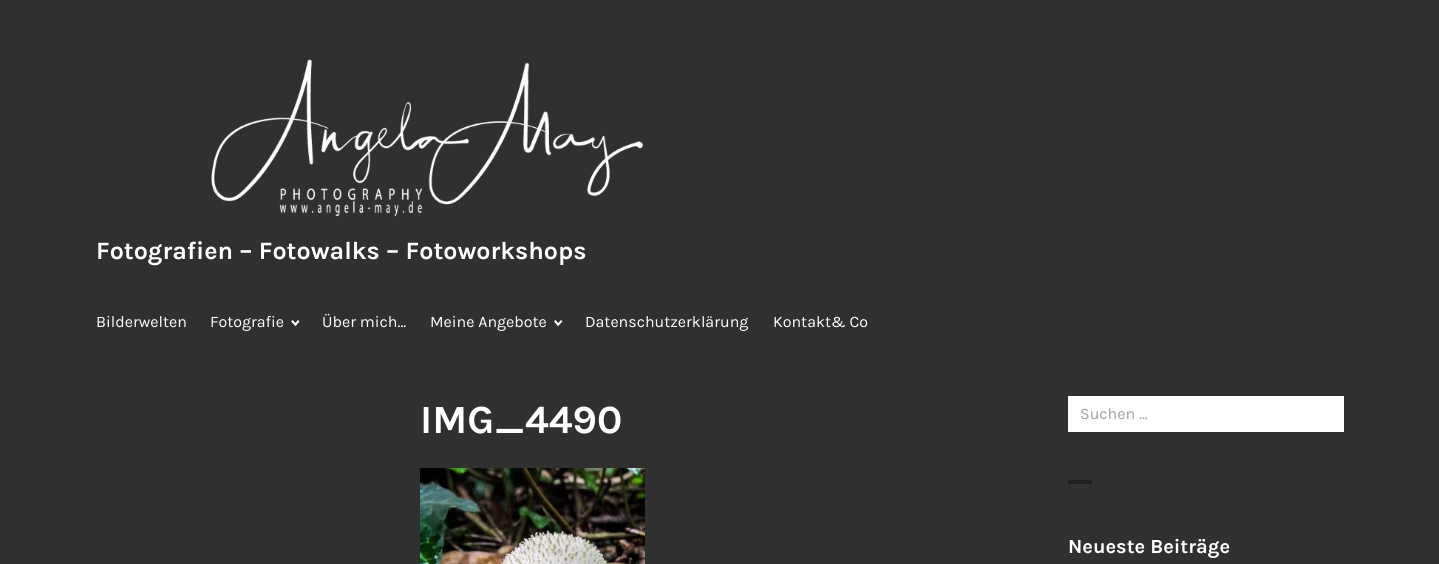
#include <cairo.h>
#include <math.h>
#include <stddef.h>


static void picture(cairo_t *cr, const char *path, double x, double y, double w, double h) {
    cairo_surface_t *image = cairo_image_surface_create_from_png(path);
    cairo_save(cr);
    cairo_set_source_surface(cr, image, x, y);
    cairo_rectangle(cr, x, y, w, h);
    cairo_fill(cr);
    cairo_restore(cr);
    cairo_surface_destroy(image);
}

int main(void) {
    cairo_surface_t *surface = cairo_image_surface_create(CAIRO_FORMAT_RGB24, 1439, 564);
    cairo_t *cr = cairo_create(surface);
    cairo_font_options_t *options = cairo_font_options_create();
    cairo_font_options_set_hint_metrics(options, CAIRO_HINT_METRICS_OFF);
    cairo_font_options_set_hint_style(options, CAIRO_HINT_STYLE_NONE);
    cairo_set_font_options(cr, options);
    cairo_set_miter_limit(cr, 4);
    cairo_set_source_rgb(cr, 0.188, 0.188, 0.188);
    cairo_paint(cr);
    picture(cr, "img1.png", 211, 59, 432, 158);
    cairo_select_font_face(cr, "Karla", CAIRO_FONT_SLANT_NORMAL, CAIRO_FONT_WEIGHT_BOLD);
    cairo_set_font_size(cr, 25);
    cairo_set_source_rgb(cr, 1, 1, 1);
    cairo_move_to(cr, 96, 259);
    cairo_show_text(cr, "Fotografien – Fotowalks – Fotoworkshops");
    cairo_select_font_face(cr, "Karla", CAIRO_FONT_SLANT_NORMAL, CAIRO_FONT_WEIGHT_NORMAL);
    cairo_set_font_size(cr, 16);
    cairo_move_to(cr, 96, 327);
    cairo_show_text(cr, "Bilderwelten");
    cairo_move_to(cr, 210, 327);
    cairo_show_text(cr, "Fotografie");
    cairo_new_path(cr);
    cairo_move_to(cr, 299.5, 321.5);
    cairo_line_to(cr, 295.5, 326);
    cairo_line_to(cr, 294, 324.5);
    cairo_line_to(cr, 298, 320);
    cairo_close_path(cr);
    cairo_fill(cr);
    cairo_new_path(cr);
    cairo_move_to(cr, 297, 324.5);
    cairo_line_to(cr, 295.5, 326);
    cairo_line_to(cr, 291, 321.5);
    cairo_line_to(cr, 292.5, 320);
    cairo_close_path(cr);
    cairo_fill(cr);
    cairo_move_to(cr, 322, 327);
    cairo_show_text(cr, "Über mich…");
    cairo_move_to(cr, 430, 327);
    cairo_show_text(cr, "Meine Angebote");
    cairo_new_path(cr);
    cairo_move_to(cr, 562.5, 321.5);
    cairo_line_to(cr, 558, 326);
    cairo_line_to(cr, 557, 324.5);
    cairo_line_to(cr, 561, 320);
    cairo_close_path(cr);
    cairo_fill(cr);
    cairo_new_path(cr);
    cairo_move_to(cr, 559.5, 324.5);
    cairo_line_to(cr, 558, 326);
    cairo_line_to(cr, 554, 321.5);
    cairo_line_to(cr, 555.5, 320);
    cairo_close_path(cr);
    cairo_fill(cr);
    cairo_move_to(cr, 585, 327);
    cairo_show_text(cr, "Datenschutzerklärung");
    cairo_move_to(cr, 773, 327);
    cairo_show_text(cr, "Kontakt& Co");
    cairo_select_font_face(cr, "Karla", CAIRO_FONT_SLANT_NORMAL, CAIRO_FONT_WEIGHT_BOLD);
    cairo_set_font_size(cr, 40);
    cairo_move_to(cr, 420, 433);
    cairo_show_text(cr, "IMG_4490");
    picture(cr, "img2.png", 420, 468, 225, 96);
    cairo_rectangle(cr, 1068, 396, 276, 36);
    cairo_fill(cr);
    cairo_select_font_face(cr, "Karla", CAIRO_FONT_SLANT_NORMAL, CAIRO_FONT_WEIGHT_NORMAL);
    cairo_set_font_size(cr, 16);
    cairo_set_source_rgb(cr, 0.627, 0.627, 0.627);
    cairo_move_to(cr, 1080, 419);
    cairo_show_text(cr, "Suchen …");
    cairo_set_source_rgb(cr, 0.125, 0.125, 0.125);
    cairo_rectangle(cr, 1068, 480, 24, 4);
    cairo_fill(cr);
    cairo_select_font_face(cr, "Karla", CAIRO_FONT_SLANT_NORMAL, CAIRO_FONT_WEIGHT_BOLD);
    cairo_set_font_size(cr, 20);
    cairo_set_source_rgb(cr, 1, 1, 1);
    cairo_move_to(cr, 1068, 553);
    cairo_show_text(cr, "Neueste Beiträge");
    cairo_surface_write_to_png(surface, "page.png");
    cairo_font_options_destroy(options);
    cairo_destroy(cr);
    cairo_surface_destroy(surface);
    return 0;
}
